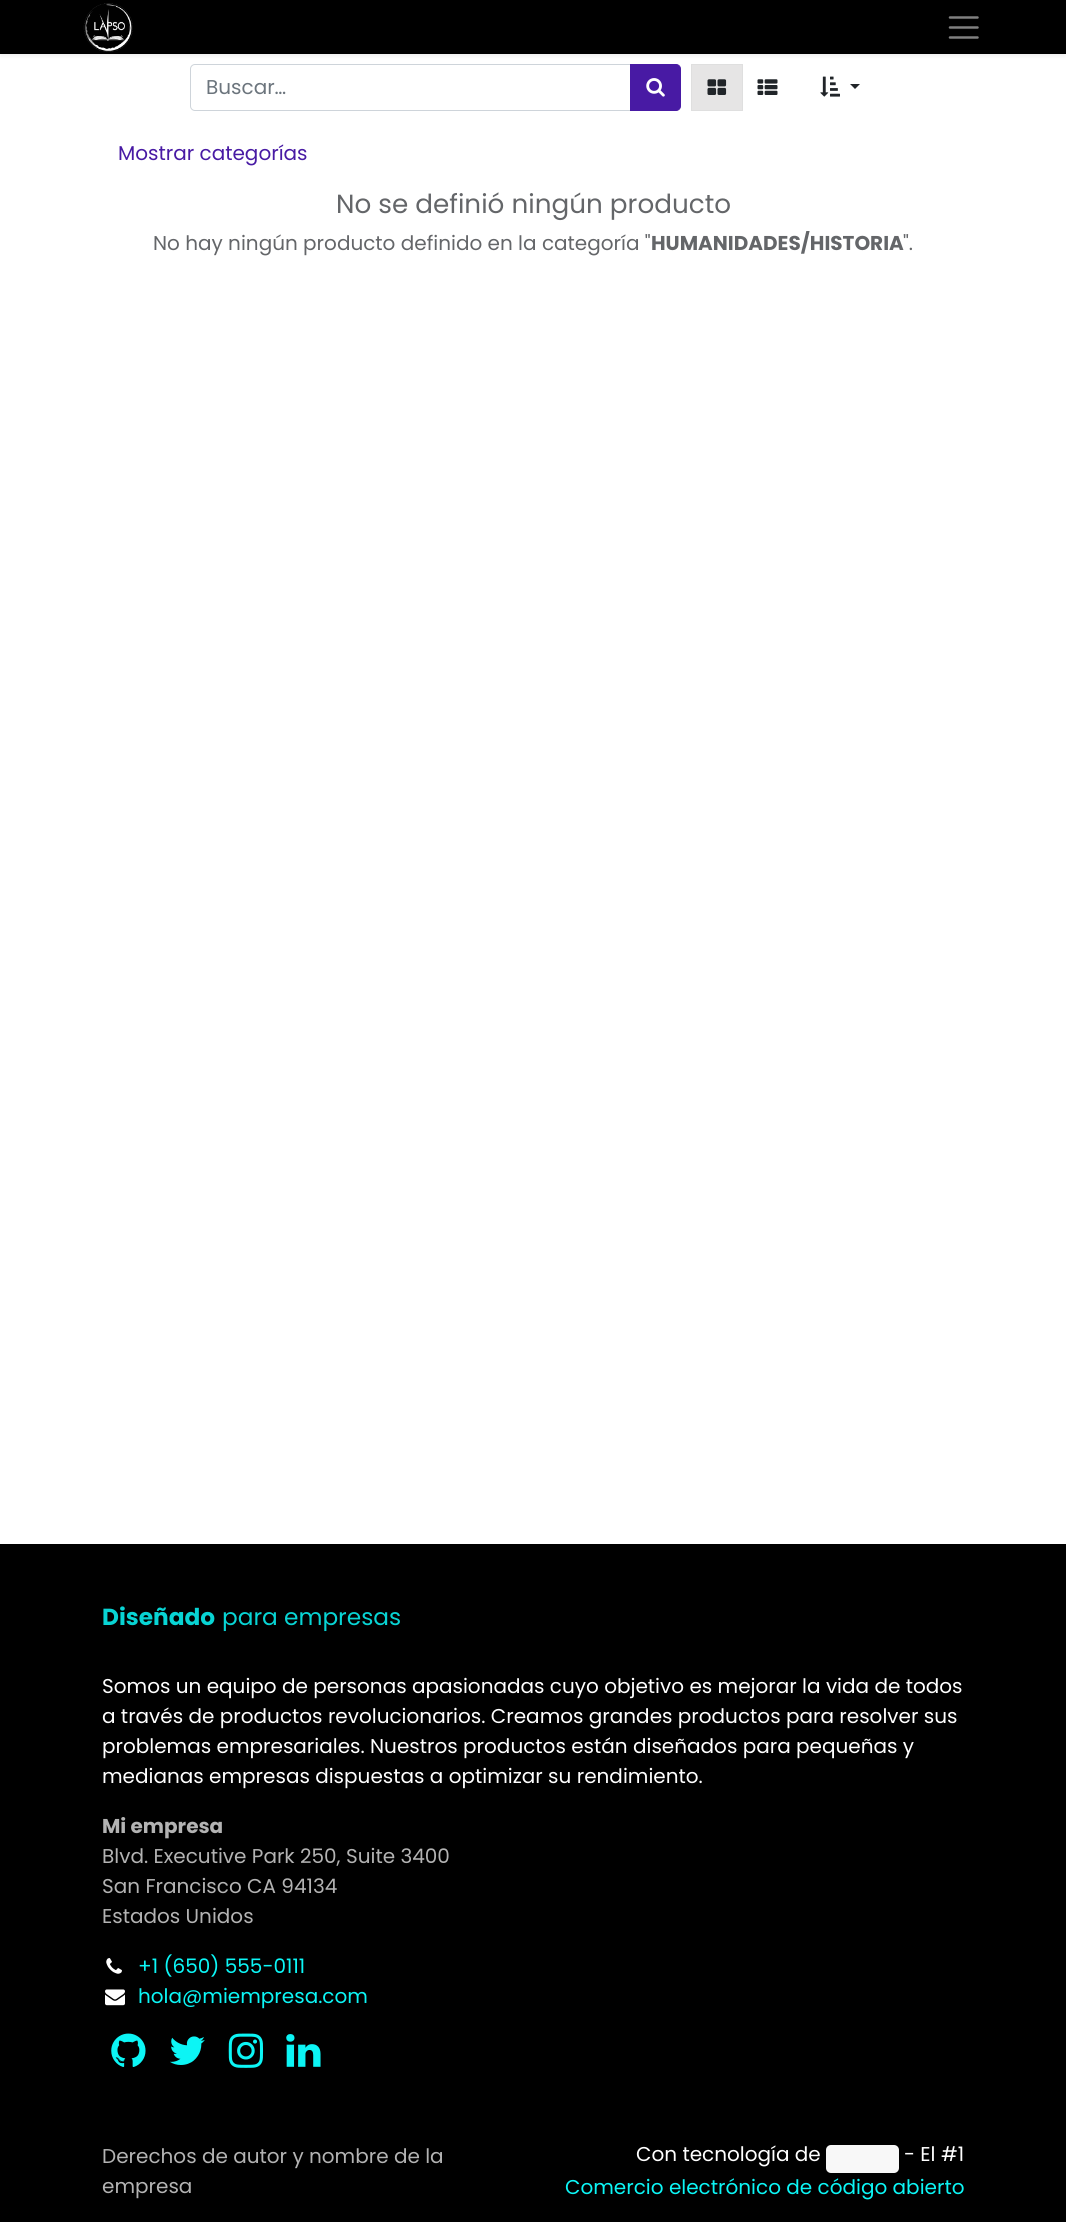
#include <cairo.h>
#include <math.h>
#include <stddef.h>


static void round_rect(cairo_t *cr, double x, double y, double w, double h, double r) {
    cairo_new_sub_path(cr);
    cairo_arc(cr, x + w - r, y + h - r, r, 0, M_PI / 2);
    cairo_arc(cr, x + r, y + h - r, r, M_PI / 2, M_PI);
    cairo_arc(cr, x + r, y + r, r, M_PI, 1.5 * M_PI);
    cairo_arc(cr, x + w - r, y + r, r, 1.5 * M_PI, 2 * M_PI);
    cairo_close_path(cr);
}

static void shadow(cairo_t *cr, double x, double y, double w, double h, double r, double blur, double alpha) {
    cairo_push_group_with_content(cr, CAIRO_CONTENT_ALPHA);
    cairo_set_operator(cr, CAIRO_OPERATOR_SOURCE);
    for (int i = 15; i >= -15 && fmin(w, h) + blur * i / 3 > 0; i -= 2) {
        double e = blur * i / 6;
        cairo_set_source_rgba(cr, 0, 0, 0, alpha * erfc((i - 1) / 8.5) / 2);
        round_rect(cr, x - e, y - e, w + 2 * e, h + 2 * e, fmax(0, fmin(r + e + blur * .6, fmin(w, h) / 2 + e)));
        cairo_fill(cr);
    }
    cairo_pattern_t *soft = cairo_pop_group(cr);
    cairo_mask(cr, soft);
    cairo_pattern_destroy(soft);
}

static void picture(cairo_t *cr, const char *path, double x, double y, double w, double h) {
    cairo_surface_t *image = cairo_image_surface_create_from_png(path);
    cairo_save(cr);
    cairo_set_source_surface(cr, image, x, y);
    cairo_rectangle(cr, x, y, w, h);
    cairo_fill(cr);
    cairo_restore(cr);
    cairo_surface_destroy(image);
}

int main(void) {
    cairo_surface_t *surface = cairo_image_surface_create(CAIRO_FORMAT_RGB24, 1066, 2222);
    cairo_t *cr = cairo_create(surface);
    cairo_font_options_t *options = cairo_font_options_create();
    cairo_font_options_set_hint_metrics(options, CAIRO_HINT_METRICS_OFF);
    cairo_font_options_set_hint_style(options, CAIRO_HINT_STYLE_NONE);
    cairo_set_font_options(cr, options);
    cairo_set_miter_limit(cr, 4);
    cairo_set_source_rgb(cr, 1, 1, 1);
    cairo_paint(cr);
    cairo_new_path(cr);
    cairo_move_to(cr, 195, 64.5);
    cairo_line_to(cr, 630.5, 64.5);
    cairo_line_to(cr, 630.5, 110.5);
    cairo_line_to(cr, 195, 110.5);
    cairo_curve_to(cr, 192.5, 110.5, 190.5, 108.5, 190.5, 106);
    cairo_line_to(cr, 190.5, 69);
    cairo_curve_to(cr, 190.5, 66.5, 192.5, 64.5, 195, 64.5);
    cairo_close_path(cr);
    cairo_set_source_rgb(cr, 0.808, 0.831, 0.855);
    cairo_set_line_width(cr, 1);
    cairo_stroke(cr);
    cairo_set_source_rgb(cr, 0.282, 0.102, 0.643);
    cairo_new_path(cr);
    cairo_move_to(cr, 630.5, 64.5);
    cairo_line_to(cr, 676, 64.5);
    cairo_curve_to(cr, 678.5, 64.5, 680.5, 66.5, 680.5, 69);
    cairo_line_to(cr, 680.5, 106);
    cairo_curve_to(cr, 680.5, 108.5, 678.5, 110.5, 676, 110.5);
    cairo_line_to(cr, 630.5, 110.5);
    cairo_close_path(cr);
    cairo_fill_preserve(cr);
    cairo_stroke(cr);
    cairo_set_source_rgb(cr, 0.902, 0.898, 0.898);
    cairo_rectangle(cr, 691.5, 64.5, 51, 46);
    cairo_fill_preserve(cr);
    cairo_set_source_rgb(cr, 0.875, 0.875, 0.875);
    cairo_stroke(cr);
    cairo_set_source_rgb(cr, 0, 0, 0);
    shadow(cr, 0, 3, 1066, 53, 0, 2.5, 0.07);
    cairo_set_source_rgb(cr, 0, 0, 0);
    cairo_rectangle(cr, 0, 0, 1066, 54);
    cairo_fill(cr);
    picture(cr, "img1.png", 83, 3, 50, 49);
    cairo_new_path(cr);
    cairo_move_to(cr, 950, 17.5);
    cairo_line_to(cr, 977.5, 17.5);
    cairo_move_to(cr, 950, 27.5);
    cairo_line_to(cr, 977.5, 27.5);
    cairo_move_to(cr, 950, 37.5);
    cairo_line_to(cr, 977.5, 37.5);
    cairo_set_source_rgb(cr, 0.502, 0.502, 0.502);
    cairo_set_line_width(cr, 2.5);
    cairo_set_line_cap(cr, CAIRO_LINE_CAP_ROUND);
    cairo_stroke(cr);
    cairo_select_font_face(cr, "Poppins", CAIRO_FONT_SLANT_NORMAL, CAIRO_FONT_WEIGHT_NORMAL);
    cairo_set_font_size(cr, 20);
    cairo_set_source_rgb(cr, 0.424, 0.459, 0.49);
    cairo_move_to(cr, 206, 94);
    cairo_show_text(cr, "Buscar…");
    picture(cr, "img2.png", 646, 78, 19, 19);
    picture(cr, "img3.png", 707, 79, 20, 16);
    picture(cr, "img4.png", 757, 79, 21, 16);
    picture(cr, "img5.png", 820, 76, 20, 21);
    cairo_set_source_rgb(cr, 0.129, 0.145, 0.161);
    cairo_new_path(cr);
    cairo_move_to(cr, 850, 84);
    cairo_line_to(cr, 860, 84);
    cairo_line_to(cr, 855, 89);
    cairo_close_path(cr);
    cairo_fill(cr);
    cairo_set_source_rgb(cr, 0.282, 0.102, 0.643);
    cairo_move_to(cr, 118, 160);
    cairo_show_text(cr, "Mostrar categorías");
    cairo_set_font_size(cr, 26.25);
    cairo_set_source_rgb(cr, 0.392, 0.4, 0.412);
    cairo_move_to(cr, 336, 213);
    cairo_show_text(cr, "No se definió ningún producto");
    cairo_set_font_size(cr, 20);
    cairo_move_to(cr, 153, 250);
    cairo_show_text(cr, "No hay ningún producto definido en la categoría \"");
    cairo_select_font_face(cr, "Poppins", CAIRO_FONT_SLANT_NORMAL, CAIRO_FONT_WEIGHT_BOLD);
    cairo_move_to(cr, 651, 250);
    cairo_show_text(cr, "HUMANIDADES/HISTORIA");
    cairo_select_font_face(cr, "Poppins", CAIRO_FONT_SLANT_NORMAL, CAIRO_FONT_WEIGHT_NORMAL);
    cairo_move_to(cr, 903, 250);
    cairo_show_text(cr, "\".");
    cairo_set_source_rgb(cr, 0, 0, 0);
    cairo_rectangle(cr, 0, 1544, 1066, 678);
    cairo_fill(cr);
    cairo_select_font_face(cr, "Poppins", CAIRO_FONT_SLANT_NORMAL, CAIRO_FONT_WEIGHT_BOLD);
    cairo_set_font_size(cr, 23.25);
    cairo_set_source_rgb(cr, 0.035, 0.831, 0.831);
    cairo_move_to(cr, 102, 1625);
    cairo_show_text(cr, "Diseñado");
    cairo_select_font_face(cr, "Poppins", CAIRO_FONT_SLANT_NORMAL, CAIRO_FONT_WEIGHT_NORMAL);
    cairo_move_to(cr, 222, 1625);
    cairo_show_text(cr, "para empresas");
    cairo_set_font_size(cr, 20);
    cairo_set_source_rgb(cr, 1, 1, 1);
    cairo_move_to(cr, 102, 1693);
    cairo_show_text(cr, "Somos un equipo de personas apasionadas cuyo objetivo es mejorar la vida de todos");
    cairo_move_to(cr, 102, 1723);
    cairo_show_text(cr, "a través de productos revolucionarios. Creamos grandes productos para resolver sus");
    cairo_move_to(cr, 102, 1753);
    cairo_show_text(cr, "problemas empresariales. Nuestros productos están diseñados para pequeñas y");
    cairo_move_to(cr, 102, 1783);
    cairo_show_text(cr, "medianas empresas dispuestas a optimizar su rendimiento.");
    cairo_select_font_face(cr, "Poppins", CAIRO_FONT_SLANT_NORMAL, CAIRO_FONT_WEIGHT_BOLD);
    cairo_set_source_rgb(cr, 0.702, 0.702, 0.702);
    cairo_move_to(cr, 102, 1833);
    cairo_show_text(cr, "Mi empresa");
    cairo_select_font_face(cr, "Poppins", CAIRO_FONT_SLANT_NORMAL, CAIRO_FONT_WEIGHT_NORMAL);
    cairo_move_to(cr, 102, 1863);
    cairo_show_text(cr, "Blvd. Executive Park 250, Suite 3400");
    cairo_move_to(cr, 102, 1893);
    cairo_show_text(cr, "San Francisco CA 94134");
    cairo_move_to(cr, 102, 1923);
    cairo_show_text(cr, "Estados Unidos");
    picture(cr, "img6.png", 106, 1958, 16, 16);
    cairo_set_source_rgb(cr, 0.047, 0.961, 0.961);
    cairo_move_to(cr, 138, 1973);
    cairo_show_text(cr, "+1 (650) 555-0111");
    picture(cr, "img7.png", 105, 1989, 20, 17);
    cairo_move_to(cr, 138, 2003);
    cairo_show_text(cr, "hola@miempresa.com");
    picture(cr, "img8.png", 111, 2033, 35, 34);
    picture(cr, "img9.png", 170, 2036, 35, 29);
    picture(cr, "img10.png", 228, 2033, 36, 35);
    picture(cr, "img11.png", 286, 2034, 35, 33);
    cairo_set_source_rgb(cr, 0.702, 0.702, 0.702);
    cairo_move_to(cr, 102, 2163);
    cairo_show_text(cr, "Derechos de autor y nombre de la");
    cairo_move_to(cr, 102, 2193);
    cairo_show_text(cr, "empresa");
    cairo_set_source_rgb(cr, 1, 1, 1);
    cairo_move_to(cr, 636, 2161);
    cairo_show_text(cr, "Con tecnología de");
    cairo_set_source_rgb(cr, 0.969, 0.969, 0.969);
    round_rect(cr, 826, 2145, 73, 28, 5);
    cairo_fill(cr);
    cairo_set_source_rgb(cr, 1, 1, 1);
    cairo_move_to(cr, 904, 2161);
    cairo_show_text(cr, "- El #1");
    cairo_set_source_rgb(cr, 0.047, 0.961, 0.961);
    cairo_move_to(cr, 565, 2194);
    cairo_show_text(cr, "Comercio electrónico de código abierto");
    cairo_surface_write_to_png(surface, "page.png");
    cairo_font_options_destroy(options);
    cairo_destroy(cr);
    cairo_surface_destroy(surface);
    return 0;
}
